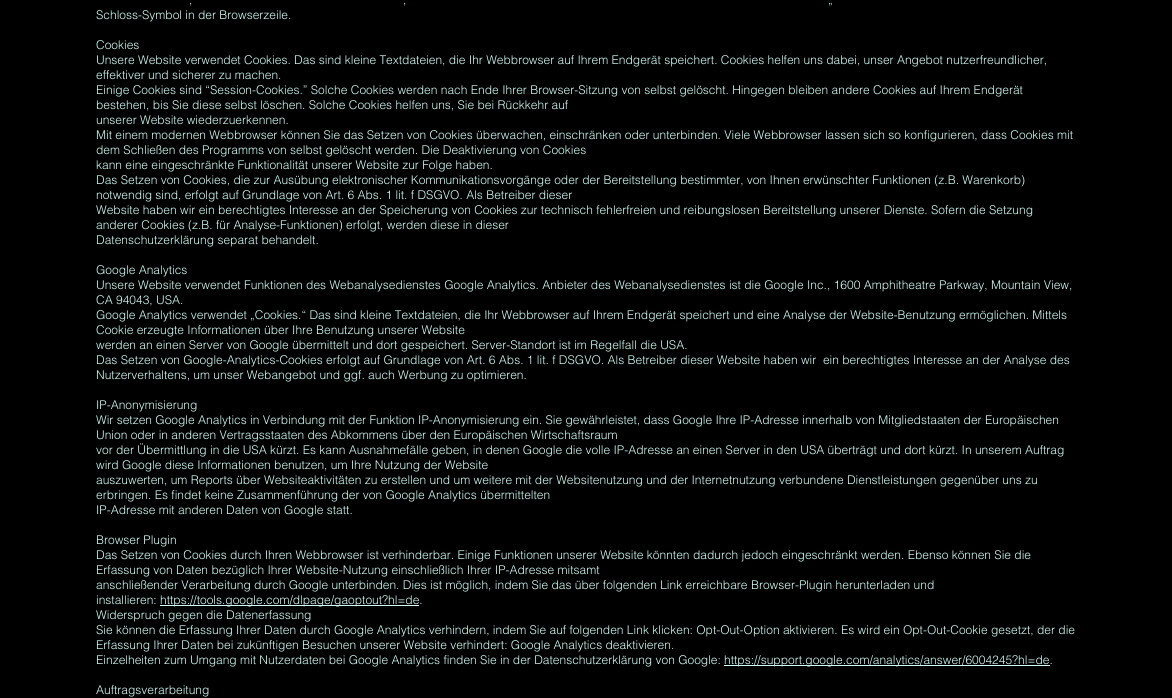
#include <cairo.h>
#include <math.h>
#include <stddef.h>


int main(void) {
    cairo_surface_t *surface = cairo_image_surface_create(CAIRO_FORMAT_RGB24, 1172, 698);
    cairo_t *cr = cairo_create(surface);
    cairo_font_options_t *options = cairo_font_options_create();
    cairo_font_options_set_hint_metrics(options, CAIRO_HINT_METRICS_OFF);
    cairo_font_options_set_hint_style(options, CAIRO_HINT_STYLE_NONE);
    cairo_set_font_options(cr, options);
    cairo_set_miter_limit(cr, 4);
    cairo_set_source_rgb(cr, 0, 0, 0);
    cairo_paint(cr);
    cairo_select_font_face(cr, "helvetica Light", CAIRO_FONT_SLANT_NORMAL, CAIRO_FONT_WEIGHT_NORMAL);
    cairo_set_font_size(cr, 12);
    cairo_set_source_rgb(cr, 0.824, 1, 0.965);
    cairo_move_to(cr, 189, 4);
    cairo_show_text(cr, ",");
    cairo_move_to(cr, 403, 4);
    cairo_show_text(cr, ",");
    cairo_move_to(cr, 828, 4);
    cairo_show_text(cr, "„");
    cairo_move_to(cr, 96, 19);
    cairo_show_text(cr, "Schloss-Symbol in der Browserzeile.");
    cairo_move_to(cr, 96, 49);
    cairo_show_text(cr, "Cookies");
    cairo_move_to(cr, 96, 64);
    cairo_show_text(cr, "Unsere Website verwendet Cookies. Das sind kleine Textdateien, die Ihr Webbrowser auf Ihrem Endgerät speichert. Cookies helfen uns dabei, unser Angebot nutzerfreundlicher,");
    cairo_move_to(cr, 96, 79);
    cairo_show_text(cr, "effektiver und sicherer zu machen.");
    cairo_move_to(cr, 96, 94);
    cairo_show_text(cr, "Einige Cookies sind “Session-Cookies.” Solche Cookies werden nach Ende Ihrer Browser-Sitzung von selbst gelöscht. Hingegen bleiben andere Cookies auf Ihrem Endgerät");
    cairo_move_to(cr, 96, 109);
    cairo_show_text(cr, "bestehen, bis Sie diese selbst löschen. Solche Cookies helfen uns, Sie bei Rückkehr auf");
    cairo_move_to(cr, 96, 124);
    cairo_show_text(cr, "unserer Website wiederzuerkennen.");
    cairo_move_to(cr, 96, 139);
    cairo_show_text(cr, "Mit einem modernen Webbrowser können Sie das Setzen von Cookies überwachen, einschränken oder unterbinden. Viele Webbrowser lassen sich so konfigurieren, dass Cookies mit");
    cairo_move_to(cr, 96, 154);
    cairo_show_text(cr, "dem Schließen des Programms von selbst gelöscht werden. Die Deaktivierung von Cookies");
    cairo_move_to(cr, 96, 169);
    cairo_show_text(cr, "kann eine eingeschränkte Funktionalität unserer Website zur Folge haben.");
    cairo_move_to(cr, 96, 184);
    cairo_show_text(cr, "Das Setzen von Cookies, die zur Ausübung elektronischer Kommunikationsvorgänge oder der Bereitstellung bestimmter, von Ihnen erwünschter Funktionen (z.B. Warenkorb)");
    cairo_move_to(cr, 96, 199);
    cairo_show_text(cr, "notwendig sind, erfolgt auf Grundlage von Art. 6 Abs. 1 lit. f DSGVO. Als Betreiber dieser");
    cairo_move_to(cr, 96, 214);
    cairo_show_text(cr, "Website haben wir ein berechtigtes Interesse an der Speicherung von Cookies zur technisch fehlerfreien und reibungslosen Bereitstellung unserer Dienste. Sofern die Setzung");
    cairo_move_to(cr, 96, 229);
    cairo_show_text(cr, "anderer Cookies (z.B. für Analyse-Funktionen) erfolgt, werden diese in dieser");
    cairo_move_to(cr, 96, 244);
    cairo_show_text(cr, "Datenschutzerklärung separat behandelt.");
    cairo_move_to(cr, 96, 274);
    cairo_show_text(cr, "Google Analytics");
    cairo_move_to(cr, 96, 289);
    cairo_show_text(cr, "Unsere Website verwendet Funktionen des Webanalysedienstes Google Analytics. Anbieter des Webanalysedienstes ist die Google Inc., 1600 Amphitheatre Parkway, Mountain View,");
    cairo_move_to(cr, 96, 304);
    cairo_show_text(cr, "CA 94043, USA.");
    cairo_move_to(cr, 96, 319);
    cairo_show_text(cr, "Google Analytics verwendet „Cookies.“ Das sind kleine Textdateien, die Ihr Webbrowser auf Ihrem Endgerät speichert und eine Analyse der Website-Benutzung ermöglichen. Mittels");
    cairo_move_to(cr, 96, 334);
    cairo_show_text(cr, "Cookie erzeugte Informationen über Ihre Benutzung unserer Website");
    cairo_move_to(cr, 96, 349);
    cairo_show_text(cr, "werden an einen Server von Google übermittelt und dort gespeichert. Server-Standort ist im Regelfall die USA.");
    cairo_move_to(cr, 96, 364);
    cairo_show_text(cr, "Das Setzen von Google-Analytics-Cookies erfolgt auf Grundlage von Art. 6 Abs. 1 lit. f DSGVO. Als Betreiber dieser Website haben wir  ein berechtigtes Interesse an der Analyse des");
    cairo_move_to(cr, 96, 379);
    cairo_show_text(cr, "Nutzerverhaltens, um unser Webangebot und ggf. auch Werbung zu optimieren.");
    cairo_move_to(cr, 96, 409);
    cairo_show_text(cr, "IP-Anonymisierung");
    cairo_move_to(cr, 96, 424);
    cairo_show_text(cr, "Wir setzen Google Analytics in Verbindung mit der Funktion IP-Anonymisierung ein. Sie gewährleistet, dass Google Ihre IP-Adresse innerhalb von Mitgliedstaaten der Europäischen");
    cairo_move_to(cr, 96, 439);
    cairo_show_text(cr, "Union oder in anderen Vertragsstaaten des Abkommens über den Europäischen Wirtschaftsraum");
    cairo_move_to(cr, 96, 454);
    cairo_show_text(cr, "vor der Übermittlung in die USA kürzt. Es kann Ausnahmefälle geben, in denen Google die volle IP-Adresse an einen Server in den USA überträgt und dort kürzt. In unserem Auftrag");
    cairo_move_to(cr, 96, 469);
    cairo_show_text(cr, "wird Google diese Informationen benutzen, um Ihre Nutzung der Website");
    cairo_move_to(cr, 96, 484);
    cairo_show_text(cr, "auszuwerten, um Reports über Websiteaktivitäten zu erstellen und um weitere mit der Websitenutzung und der Internetnutzung verbundene Dienstleistungen gegenüber uns zu");
    cairo_move_to(cr, 96, 499);
    cairo_show_text(cr, "erbringen. Es findet keine Zusammenführung der von Google Analytics übermittelten");
    cairo_move_to(cr, 96, 514);
    cairo_show_text(cr, "IP-Adresse mit anderen Daten von Google statt.");
    cairo_move_to(cr, 96, 544);
    cairo_show_text(cr, "Browser Plugin");
    cairo_move_to(cr, 96, 559);
    cairo_show_text(cr, "Das Setzen von Cookies durch Ihren Webbrowser ist verhinderbar. Einige Funktionen unserer Website könnten dadurch jedoch eingeschränkt werden. Ebenso können Sie die");
    cairo_move_to(cr, 96, 574);
    cairo_show_text(cr, "Erfassung von Daten bezüglich Ihrer Website-Nutzung einschließlich Ihrer IP-Adresse mitsamt");
    cairo_move_to(cr, 96, 589);
    cairo_show_text(cr, "anschließender Verarbeitung durch Google unterbinden. Dies ist möglich, indem Sie das über folgenden Link erreichbare Browser-Plugin herunterladen und");
    cairo_move_to(cr, 96, 604);
    cairo_show_text(cr, "installieren:");
    cairo_rectangle(cr, 160, 605, 259, 1);
    cairo_fill(cr);
    cairo_move_to(cr, 160, 604);
    cairo_show_text(cr, "https://tools.google.com/dlpage/gaoptout?hl=de.");
    cairo_move_to(cr, 96, 619);
    cairo_show_text(cr, "Widerspruch gegen die Datenerfassung");
    cairo_move_to(cr, 96, 634);
    cairo_show_text(cr, "Sie können die Erfassung Ihrer Daten durch Google Analytics verhindern, indem Sie auf folgenden Link klicken: Opt-Out-Option aktivieren. Es wird ein Opt-Out-Cookie gesetzt, der die");
    cairo_move_to(cr, 96, 649);
    cairo_show_text(cr, "Erfassung Ihrer Daten bei zukünftigen Besuchen unserer Website verhindert: Google Analytics deaktivieren.");
    cairo_move_to(cr, 96, 664);
    cairo_show_text(cr, "Einzelheiten zum Umgang mit Nutzerdaten bei Google Analytics finden Sie in der Datenschutzerklärung von Google:");
    cairo_rectangle(cr, 724, 665, 326, 1);
    cairo_fill(cr);
    cairo_move_to(cr, 724, 664);
    cairo_show_text(cr, "https://support.google.com/analytics/answer/6004245?hl=de.");
    cairo_move_to(cr, 96, 694);
    cairo_show_text(cr, "Auftragsverarbeitung");
    cairo_surface_write_to_png(surface, "page.png");
    cairo_font_options_destroy(options);
    cairo_destroy(cr);
    cairo_surface_destroy(surface);
    return 0;
}
